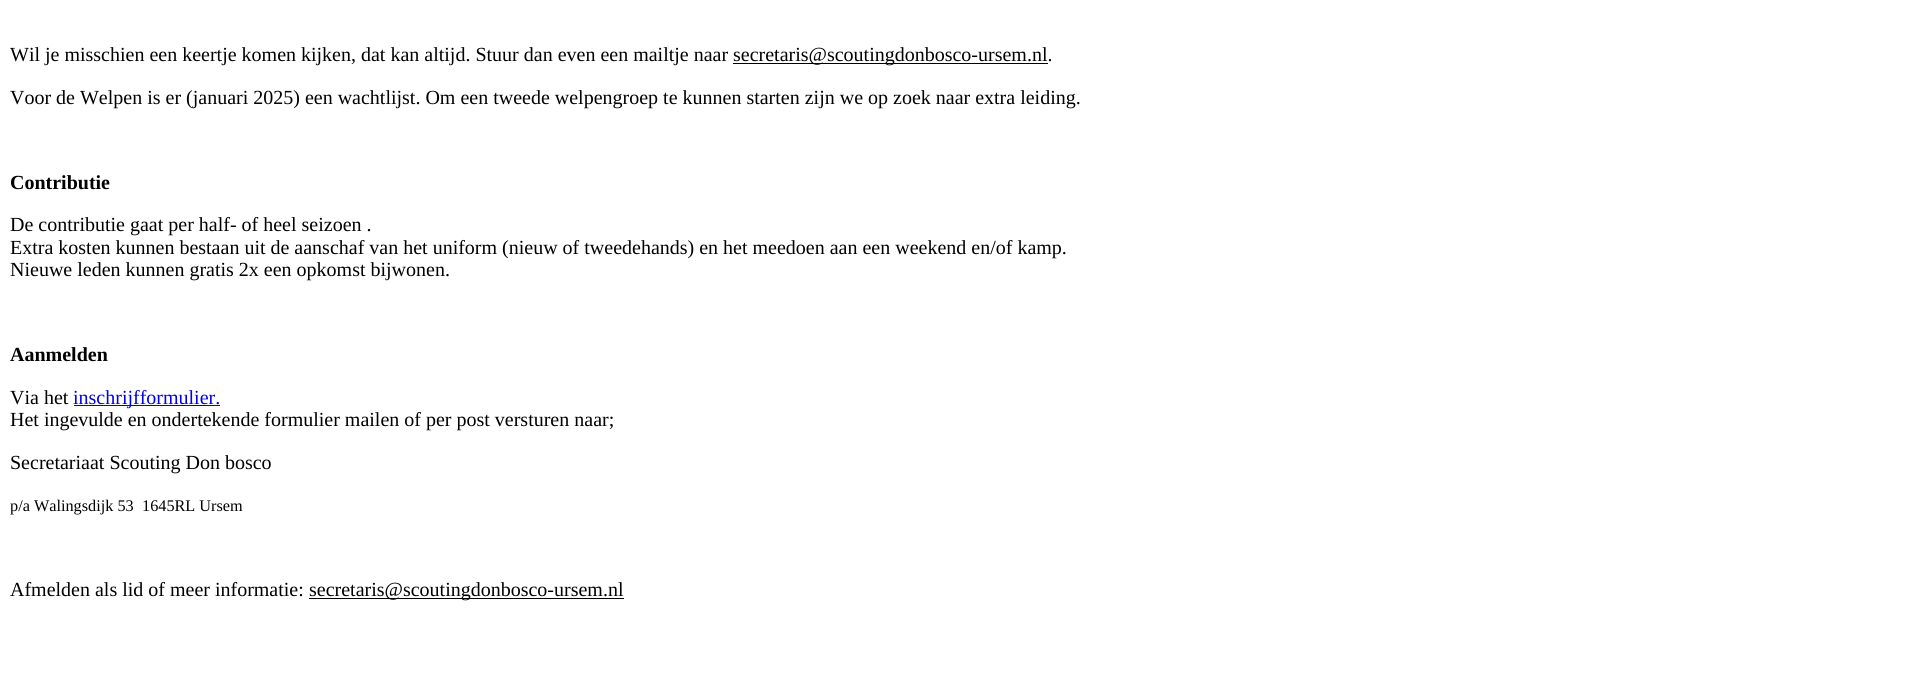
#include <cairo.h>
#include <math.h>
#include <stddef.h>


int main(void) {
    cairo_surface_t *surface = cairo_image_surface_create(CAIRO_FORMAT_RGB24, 1929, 684);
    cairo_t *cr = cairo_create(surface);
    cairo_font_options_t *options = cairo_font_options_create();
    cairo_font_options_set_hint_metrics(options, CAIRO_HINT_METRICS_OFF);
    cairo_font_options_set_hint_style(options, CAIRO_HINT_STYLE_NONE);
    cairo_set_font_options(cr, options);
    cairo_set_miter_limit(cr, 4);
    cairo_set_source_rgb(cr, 1, 1, 1);
    cairo_paint(cr);
    cairo_select_font_face(cr, "Liberation Serif", CAIRO_FONT_SLANT_NORMAL, CAIRO_FONT_WEIGHT_NORMAL);
    cairo_set_font_size(cr, 20);
    cairo_set_source_rgb(cr, 0, 0, 0);
    cairo_move_to(cr, 10, 61);
    cairo_show_text(cr, "Wil je misschien een keertje komen kijken, dat kan altijd. Stuur dan even een mailtje naar");
    cairo_rectangle(cr, 733, 63, 315, 1);
    cairo_fill(cr);
    cairo_move_to(cr, 733, 61);
    cairo_show_text(cr, "secretaris@scoutingdonbosco-ursem.nl.");
    cairo_move_to(cr, 10, 104);
    cairo_show_text(cr, "Voor de Welpen is er (januari 2025) een wachtlijst. Om een tweede welpengroep te kunnen starten zijn we op zoek naar extra leiding.");
    cairo_select_font_face(cr, "Liberation Serif", CAIRO_FONT_SLANT_NORMAL, CAIRO_FONT_WEIGHT_BOLD);
    cairo_move_to(cr, 10, 189);
    cairo_show_text(cr, "Contributie");
    cairo_select_font_face(cr, "Liberation Serif", CAIRO_FONT_SLANT_NORMAL, CAIRO_FONT_WEIGHT_NORMAL);
    cairo_move_to(cr, 10, 231);
    cairo_show_text(cr, "De contributie gaat per half- of heel seizoen .");
    cairo_move_to(cr, 10, 254);
    cairo_show_text(cr, "Extra kosten kunnen bestaan uit de aanschaf van het uniform (nieuw of tweedehands) en het meedoen aan een weekend en/of kamp.");
    cairo_move_to(cr, 10, 276);
    cairo_show_text(cr, "Nieuwe leden kunnen gratis 2x een opkomst bijwonen.");
    cairo_select_font_face(cr, "Liberation Serif", CAIRO_FONT_SLANT_NORMAL, CAIRO_FONT_WEIGHT_BOLD);
    cairo_move_to(cr, 10, 361);
    cairo_show_text(cr, "Aanmelden");
    cairo_select_font_face(cr, "Liberation Serif", CAIRO_FONT_SLANT_NORMAL, CAIRO_FONT_WEIGHT_NORMAL);
    cairo_move_to(cr, 10, 404);
    cairo_show_text(cr, "Via het");
    cairo_set_source_rgb(cr, 0, 0, 0.933);
    cairo_rectangle(cr, 74, 405, 146, 1);
    cairo_fill(cr);
    cairo_move_to(cr, 73, 404);
    cairo_show_text(cr, "inschrijfformulier.");
    cairo_set_source_rgb(cr, 0, 0, 0);
    cairo_move_to(cr, 10, 426);
    cairo_show_text(cr, "Het ingevulde en ondertekende formulier mailen of per post versturen naar;");
    cairo_move_to(cr, 10, 469);
    cairo_show_text(cr, "Secretariaat Scouting Don bosco");
    cairo_set_font_size(cr, 16.25);
    cairo_move_to(cr, 10, 511);
    cairo_show_text(cr, "p/a Walingsdijk 53");
    cairo_move_to(cr, 142, 511);
    cairo_show_text(cr, "1645RL Ursem");
    cairo_set_font_size(cr, 20);
    cairo_move_to(cr, 10, 596);
    cairo_show_text(cr, "Afmelden als lid of meer informatie:");
    cairo_rectangle(cr, 309, 598, 315, 1);
    cairo_fill(cr);
    cairo_move_to(cr, 309, 596);
    cairo_show_text(cr, "secretaris@scoutingdonbosco-ursem.nl");
    cairo_surface_write_to_png(surface, "page.png");
    cairo_font_options_destroy(options);
    cairo_destroy(cr);
    cairo_surface_destroy(surface);
    return 0;
}
